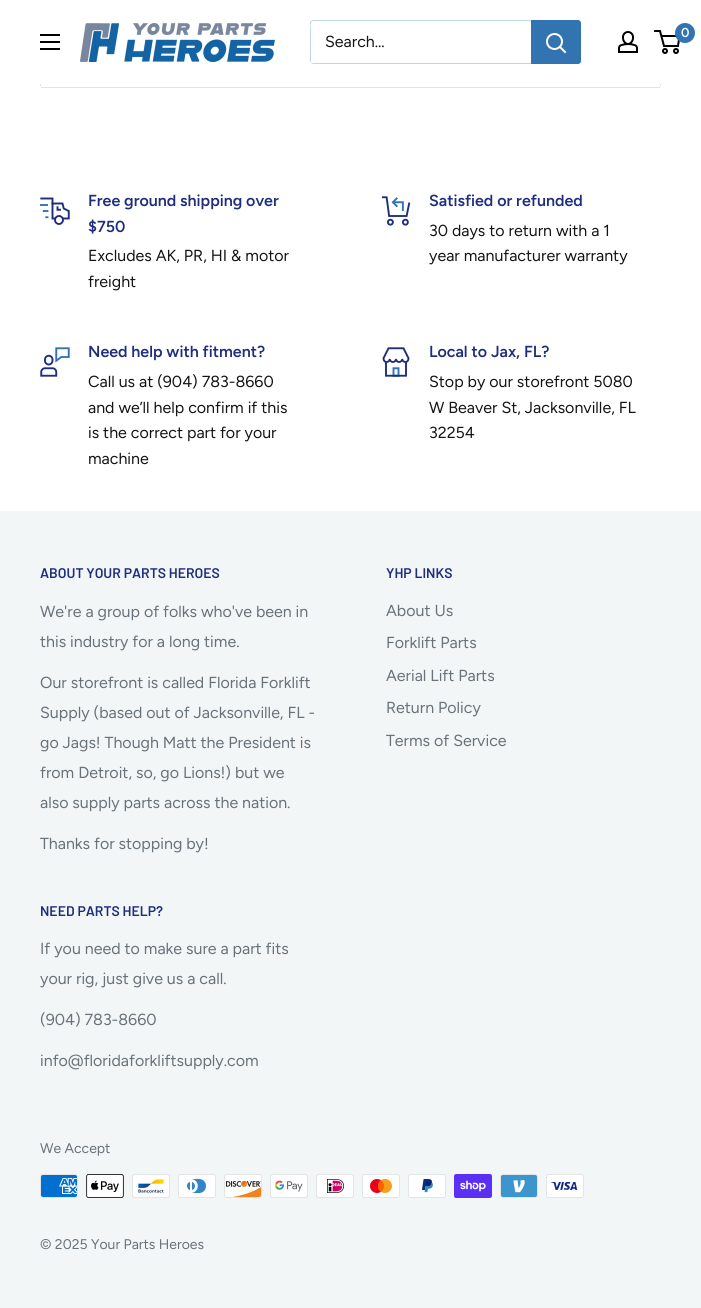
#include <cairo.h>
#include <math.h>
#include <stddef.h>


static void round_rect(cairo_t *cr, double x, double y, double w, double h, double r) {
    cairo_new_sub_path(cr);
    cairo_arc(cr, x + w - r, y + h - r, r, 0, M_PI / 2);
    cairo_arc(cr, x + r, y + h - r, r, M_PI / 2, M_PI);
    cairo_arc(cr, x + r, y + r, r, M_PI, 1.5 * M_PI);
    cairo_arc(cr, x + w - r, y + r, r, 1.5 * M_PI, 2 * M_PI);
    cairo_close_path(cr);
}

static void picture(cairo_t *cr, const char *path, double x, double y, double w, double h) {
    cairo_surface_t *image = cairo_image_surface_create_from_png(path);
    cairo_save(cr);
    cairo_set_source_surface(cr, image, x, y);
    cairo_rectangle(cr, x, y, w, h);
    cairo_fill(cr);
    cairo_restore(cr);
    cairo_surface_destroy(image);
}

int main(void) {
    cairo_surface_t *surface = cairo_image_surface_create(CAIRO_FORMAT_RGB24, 701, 1308);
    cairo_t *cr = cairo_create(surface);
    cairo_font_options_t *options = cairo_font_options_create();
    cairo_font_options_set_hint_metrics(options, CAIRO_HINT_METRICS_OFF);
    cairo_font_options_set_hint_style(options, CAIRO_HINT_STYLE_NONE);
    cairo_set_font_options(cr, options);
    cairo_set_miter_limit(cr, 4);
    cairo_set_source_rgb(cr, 1, 1, 1);
    cairo_paint(cr);
    round_rect(cr, 40.5, -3.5, 620, 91, 2.5);
    cairo_set_source_rgb(cr, 0.882, 0.89, 0.894);
    cairo_set_line_width(cr, 1);
    cairo_stroke(cr);
    cairo_rectangle(cr, 41, 87, 619, 1);
    cairo_fill(cr);
    cairo_set_source_rgb(cr, 1, 1, 1);
    cairo_rectangle(cr, 41, 85, 619, 2);
    cairo_fill(cr);
    cairo_rectangle(cr, 40, 0, 621, 84);
    cairo_fill(cr);
    picture(cr, "img1.png", 80, 23, 195, 39);
    picture(cr, "img2.png", 618, 31, 20, 22);
    cairo_arc(cr, 665, 51, 2, 0, 2 * M_PI);
    cairo_set_source_rgb(cr, 0, 0, 0);
    cairo_set_line_width(cr, 2);
    cairo_stroke(cr);
    cairo_arc(cr, 676, 51, 2, 0, 2 * M_PI);
    cairo_stroke(cr);
    cairo_new_path(cr);
    cairo_move_to(cr, 661.5, 36);
    cairo_line_to(cr, 679.5, 36);
    cairo_line_to(cr, 678, 46);
    cairo_line_to(cr, 664, 46);
    cairo_line_to(cr, 660, 31);
    cairo_line_to(cr, 654, 31);
    cairo_stroke(cr);
    cairo_set_source_rgb(cr, 0.196, 0.455, 0.694);
    cairo_arc(cr, 685, 33, 10, 0, 2 * M_PI);
    cairo_fill(cr);
    cairo_select_font_face(cr, "Figtree SemiBold", CAIRO_FONT_SLANT_NORMAL, CAIRO_FONT_WEIGHT_NORMAL);
    cairo_set_font_size(cr, 13);
    cairo_set_source_rgb(cr, 1, 1, 1);
    cairo_move_to(cr, 681, 37);
    cairo_show_text(cr, "0");
    picture(cr, "img3.png", 40, 34, 20, 16);
    cairo_set_source_rgb(cr, 0.761, 0.835, 0.91);
    cairo_new_path(cr);
    cairo_move_to(cr, 311, 63);
    cairo_line_to(cr, 313, 64);
    cairo_line_to(cr, 578, 64);
    cairo_line_to(cr, 580, 63);
    cairo_line_to(cr, 581, 62);
    cairo_line_to(cr, 581, 23);
    cairo_line_to(cr, 580, 21);
    cairo_line_to(cr, 580, 54);
    cairo_curve_to(cr, 580, 56, 582, 63, 577, 63);
    cairo_close_path(cr);
    cairo_fill(cr);
    cairo_new_path(cr);
    cairo_move_to(cr, 314, 21);
    cairo_line_to(cr, 580, 21);
    cairo_line_to(cr, 578, 20);
    cairo_line_to(cr, 313, 20);
    cairo_line_to(cr, 311, 21);
    cairo_line_to(cr, 310, 22);
    cairo_line_to(cr, 310, 61);
    cairo_line_to(cr, 311, 63);
    cairo_line_to(cr, 311, 30);
    cairo_curve_to(cr, 311, 28, 309, 21, 314, 21);
    cairo_close_path(cr);
    cairo_fill(cr);
    cairo_select_font_face(cr, "Figtree", CAIRO_FONT_SLANT_NORMAL, CAIRO_FONT_WEIGHT_NORMAL);
    cairo_set_font_size(cr, 16);
    cairo_set_source_rgb(cr, 0.082, 0.082, 0.082);
    cairo_move_to(cr, 325, 47);
    cairo_show_text(cr, "Search...");
    cairo_set_source_rgb(cr, 0.196, 0.455, 0.694);
    cairo_new_path(cr);
    cairo_move_to(cr, 531, 20);
    cairo_line_to(cr, 578, 20);
    cairo_curve_to(cr, 579.5, 20, 581, 21.5, 581, 23);
    cairo_line_to(cr, 581, 61);
    cairo_curve_to(cr, 581, 62.5, 579.5, 64, 578, 64);
    cairo_line_to(cr, 531, 64);
    cairo_close_path(cr);
    cairo_fill(cr);
    cairo_new_path(cr);
    cairo_move_to(cr, 565, 52);
    cairo_line_to(cr, 560, 47);
    cairo_set_source_rgb(cr, 1, 1, 1);
    cairo_set_line_cap(cr, CAIRO_LINE_CAP_SQUARE);
    cairo_stroke(cr);
    cairo_arc(cr, 554.5, 41.5, 7.5, 0, 2 * M_PI);
    cairo_set_line_cap(cr, CAIRO_LINE_CAP_BUTT);
    cairo_stroke(cr);
    picture(cr, "img4.png", 40, 197, 30, 28);
    cairo_select_font_face(cr, "Figtree SemiBold", CAIRO_FONT_SLANT_NORMAL, CAIRO_FONT_WEIGHT_NORMAL);
    cairo_set_source_rgb(cr, 0.118, 0.176, 0.49);
    cairo_move_to(cr, 88, 206);
    cairo_show_text(cr, "Free ground shipping over");
    cairo_move_to(cr, 88, 232);
    cairo_show_text(cr, "$750");
    cairo_select_font_face(cr, "Figtree", CAIRO_FONT_SLANT_NORMAL, CAIRO_FONT_WEIGHT_NORMAL);
    cairo_set_source_rgb(cr, 0.082, 0.082, 0.082);
    cairo_move_to(cr, 88, 261);
    cairo_show_text(cr, "Excludes AK, PR, HI & motor");
    cairo_move_to(cr, 88, 287);
    cairo_show_text(cr, "freight");
    picture(cr, "img5.png", 381, 196, 30, 30);
    cairo_select_font_face(cr, "Figtree SemiBold", CAIRO_FONT_SLANT_NORMAL, CAIRO_FONT_WEIGHT_NORMAL);
    cairo_set_source_rgb(cr, 0.118, 0.176, 0.49);
    cairo_move_to(cr, 429, 206);
    cairo_show_text(cr, "Satisfied or refunded");
    cairo_select_font_face(cr, "Figtree", CAIRO_FONT_SLANT_NORMAL, CAIRO_FONT_WEIGHT_NORMAL);
    cairo_set_source_rgb(cr, 0.082, 0.082, 0.082);
    cairo_move_to(cr, 429, 236);
    cairo_show_text(cr, "30 days to return with a 1");
    cairo_move_to(cr, 429, 261);
    cairo_show_text(cr, "year manufacturer warranty");
    picture(cr, "img6.png", 40, 347, 30, 30);
    cairo_select_font_face(cr, "Figtree SemiBold", CAIRO_FONT_SLANT_NORMAL, CAIRO_FONT_WEIGHT_NORMAL);
    cairo_set_source_rgb(cr, 0.118, 0.176, 0.49);
    cairo_move_to(cr, 88, 357);
    cairo_show_text(cr, "Need help with fitment?");
    cairo_select_font_face(cr, "Figtree", CAIRO_FONT_SLANT_NORMAL, CAIRO_FONT_WEIGHT_NORMAL);
    cairo_set_source_rgb(cr, 0.082, 0.082, 0.082);
    cairo_move_to(cr, 88, 387);
    cairo_show_text(cr, "Call us at (904) 783-8660");
    cairo_move_to(cr, 88, 413);
    cairo_show_text(cr, "and we’ll help confirm if this");
    cairo_move_to(cr, 88, 438);
    cairo_show_text(cr, "is the correct part for your");
    cairo_move_to(cr, 88, 464);
    cairo_show_text(cr, "machine");
    picture(cr, "img7.png", 382, 347, 28, 30);
    cairo_select_font_face(cr, "Figtree SemiBold", CAIRO_FONT_SLANT_NORMAL, CAIRO_FONT_WEIGHT_NORMAL);
    cairo_set_source_rgb(cr, 0.118, 0.176, 0.49);
    cairo_move_to(cr, 429, 357);
    cairo_show_text(cr, "Local to Jax, FL?");
    cairo_select_font_face(cr, "Figtree", CAIRO_FONT_SLANT_NORMAL, CAIRO_FONT_WEIGHT_NORMAL);
    cairo_set_source_rgb(cr, 0.082, 0.082, 0.082);
    cairo_move_to(cr, 429, 387);
    cairo_show_text(cr, "Stop by our storefront 5080");
    cairo_move_to(cr, 429, 413);
    cairo_show_text(cr, "W Beaver St, Jacksonville, FL");
    cairo_move_to(cr, 429, 438);
    cairo_show_text(cr, "32254");
    cairo_set_source_rgb(cr, 0.953, 0.961, 0.965);
    cairo_rectangle(cr, 0, 511, 701, 797);
    cairo_fill(cr);
    cairo_select_font_face(cr, "Barlow SemiBold", CAIRO_FONT_SLANT_NORMAL, CAIRO_FONT_WEIGHT_NORMAL);
    cairo_set_font_size(cr, 14);
    cairo_set_source_rgb(cr, 0.118, 0.176, 0.49);
    cairo_move_to(cr, 40, 578);
    cairo_show_text(cr, "ABOUT YOUR PARTS HEROES");
    cairo_select_font_face(cr, "Figtree", CAIRO_FONT_SLANT_NORMAL, CAIRO_FONT_WEIGHT_NORMAL);
    cairo_set_font_size(cr, 16);
    cairo_set_source_rgb(cr, 0.404, 0.447, 0.475);
    cairo_move_to(cr, 40, 617);
    cairo_show_text(cr, "We're a group of folks who've been in");
    cairo_move_to(cr, 40, 647);
    cairo_show_text(cr, "this industry for a long time.");
    cairo_move_to(cr, 40, 688);
    cairo_show_text(cr, "Our storefront is called Florida Forklift");
    cairo_move_to(cr, 40, 718);
    cairo_show_text(cr, "Supply (based out of Jacksonville, FL -");
    cairo_move_to(cr, 40, 748);
    cairo_show_text(cr, "go Jags! Though Matt the President is");
    cairo_move_to(cr, 40, 778);
    cairo_show_text(cr, "from Detroit, so, go Lions!) but we");
    cairo_move_to(cr, 40, 808);
    cairo_show_text(cr, "also supply parts across the nation.");
    cairo_move_to(cr, 40, 849);
    cairo_show_text(cr, "Thanks for stopping by!");
    cairo_select_font_face(cr, "Barlow SemiBold", CAIRO_FONT_SLANT_NORMAL, CAIRO_FONT_WEIGHT_NORMAL);
    cairo_set_font_size(cr, 14);
    cairo_set_source_rgb(cr, 0.118, 0.176, 0.49);
    cairo_move_to(cr, 386, 578);
    cairo_show_text(cr, "YHP LINKS");
    cairo_select_font_face(cr, "Figtree", CAIRO_FONT_SLANT_NORMAL, CAIRO_FONT_WEIGHT_NORMAL);
    cairo_set_font_size(cr, 16);
    cairo_set_source_rgb(cr, 0.404, 0.447, 0.475);
    cairo_move_to(cr, 386, 616);
    cairo_show_text(cr, "About Us");
    cairo_move_to(cr, 386, 648);
    cairo_show_text(cr, "Forklift Parts");
    cairo_move_to(cr, 386, 681);
    cairo_show_text(cr, "Aerial Lift Parts");
    cairo_move_to(cr, 386, 713);
    cairo_show_text(cr, "Return Policy");
    cairo_move_to(cr, 386, 746);
    cairo_show_text(cr, "Terms of Service");
    cairo_select_font_face(cr, "Barlow SemiBold", CAIRO_FONT_SLANT_NORMAL, CAIRO_FONT_WEIGHT_NORMAL);
    cairo_set_font_size(cr, 14);
    cairo_set_source_rgb(cr, 0.118, 0.176, 0.49);
    cairo_move_to(cr, 40, 916);
    cairo_show_text(cr, "NEED PARTS HELP?");
    cairo_select_font_face(cr, "Figtree", CAIRO_FONT_SLANT_NORMAL, CAIRO_FONT_WEIGHT_NORMAL);
    cairo_set_font_size(cr, 16);
    cairo_set_source_rgb(cr, 0.404, 0.447, 0.475);
    cairo_move_to(cr, 40, 954);
    cairo_show_text(cr, "If you need to make sure a part fits");
    cairo_move_to(cr, 40, 984);
    cairo_show_text(cr, "your rig, just give us a call.");
    cairo_move_to(cr, 40, 1025);
    cairo_show_text(cr, "(904) 783-8660");
    cairo_move_to(cr, 40, 1066);
    cairo_show_text(cr, "info@floridaforkliftsupply.com");
    cairo_set_font_size(cr, 14);
    cairo_move_to(cr, 40, 1153);
    cairo_show_text(cr, "We Accept");
    picture(cr, "img8.png", 40, 1174, 38, 24);
    picture(cr, "img9.png", 86, 1174, 38, 24);
    picture(cr, "img10.png", 132, 1174, 38, 24);
    picture(cr, "img11.png", 178, 1174, 38, 24);
    picture(cr, "img12.png", 224, 1174, 38, 24);
    picture(cr, "img13.png", 270, 1174, 38, 24);
    picture(cr, "img14.png", 316, 1174, 38, 24);
    picture(cr, "img15.png", 362, 1174, 38, 24);
    picture(cr, "img16.png", 408, 1174, 38, 24);
    picture(cr, "img17.png", 454, 1174, 38, 24);
    picture(cr, "img18.png", 500, 1174, 38, 24);
    picture(cr, "img19.png", 546, 1174, 38, 24);
    cairo_move_to(cr, 40, 1249);
    cairo_show_text(cr, "© 2025 Your Parts Heroes");
    cairo_surface_write_to_png(surface, "page.png");
    cairo_font_options_destroy(options);
    cairo_destroy(cr);
    cairo_surface_destroy(surface);
    return 0;
}
